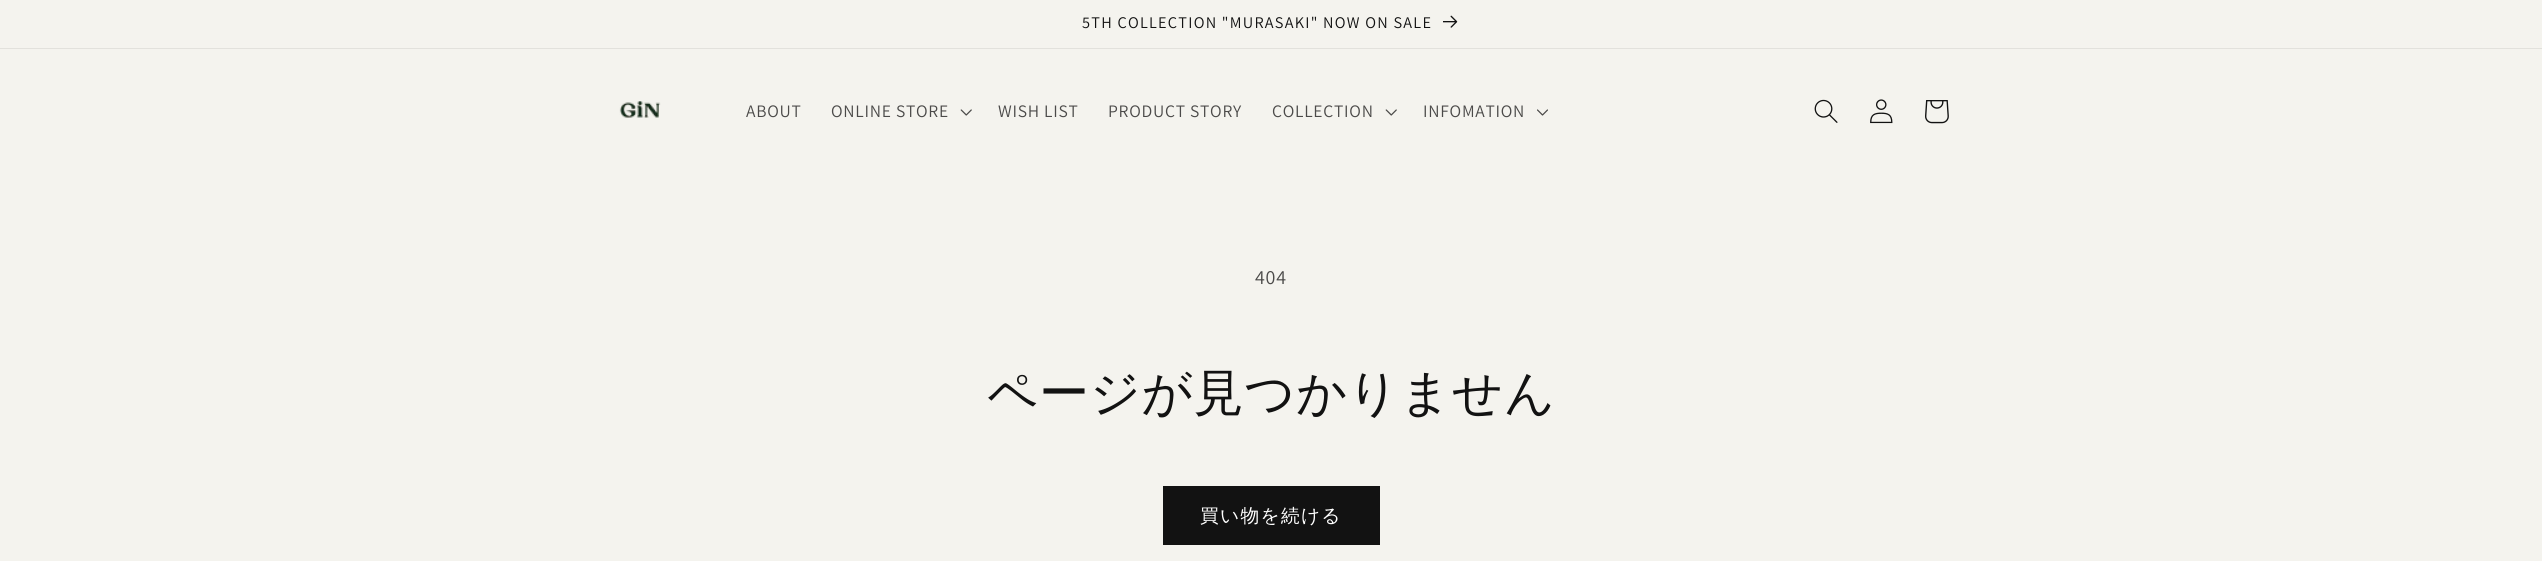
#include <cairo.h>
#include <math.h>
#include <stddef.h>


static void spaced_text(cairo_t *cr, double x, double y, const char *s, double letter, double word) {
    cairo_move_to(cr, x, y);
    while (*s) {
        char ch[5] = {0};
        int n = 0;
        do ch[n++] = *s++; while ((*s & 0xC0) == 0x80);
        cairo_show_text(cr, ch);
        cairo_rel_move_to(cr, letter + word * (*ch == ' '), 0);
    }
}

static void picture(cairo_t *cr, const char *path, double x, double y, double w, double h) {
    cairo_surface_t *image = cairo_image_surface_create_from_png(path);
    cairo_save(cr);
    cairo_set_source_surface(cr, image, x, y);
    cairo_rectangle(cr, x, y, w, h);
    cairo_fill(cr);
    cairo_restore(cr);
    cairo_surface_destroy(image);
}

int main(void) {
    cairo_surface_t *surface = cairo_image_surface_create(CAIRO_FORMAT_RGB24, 2542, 561);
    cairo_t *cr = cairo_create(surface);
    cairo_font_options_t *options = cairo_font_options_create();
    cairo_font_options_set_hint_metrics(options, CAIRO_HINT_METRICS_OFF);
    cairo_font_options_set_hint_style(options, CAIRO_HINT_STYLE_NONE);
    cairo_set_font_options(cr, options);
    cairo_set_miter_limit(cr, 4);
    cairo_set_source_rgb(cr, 0.957, 0.953, 0.933);
    cairo_paint(cr);
    cairo_set_source_rgb(cr, 0.886, 0.882, 0.863);
    cairo_rectangle(cr, 0, 48, 2542, 1);
    cairo_fill(cr);
    cairo_select_font_face(cr, "Assistant", CAIRO_FONT_SLANT_NORMAL, CAIRO_FONT_WEIGHT_NORMAL);
    cairo_set_font_size(cr, 16.25);
    cairo_set_source_rgb(cr, 0.071, 0.071, 0.071);
    spaced_text(cr, 1082, 28, "5TH COLLECTION \"MURASAKI\" NOW ON SALE", 1.25, 0);
    picture(cr, "img1.png", 1443, 15, 15, 13);
    picture(cr, "img2.png", 619, 101, 42, 17);
    cairo_set_font_size(cr, 17.5);
    cairo_set_source_rgb(cr, 0.294, 0.29, 0.286);
    spaced_text(cr, 746, 117, "ABOUT", 0.75, 0);
    spaced_text(cr, 831, 117, "ONLINE STORE", 0.75, 0);
    picture(cr, "img3.png", 960, 109, 12, 7);
    spaced_text(cr, 998, 117, "WISH LIST", 0.75, 0);
    spaced_text(cr, 1108, 117, "PRODUCT STORY", 0.75, 0);
    spaced_text(cr, 1272, 117, "COLLECTION", 0.75, 0);
    picture(cr, "img3.png", 1385, 109, 12, 7);
    spaced_text(cr, 1423, 117, "INFOMATION", 0.75, 0);
    picture(cr, "img4.png", 1537, 109, 11, 7);
    picture(cr, "img5.png", 1814, 99, 24, 24);
    picture(cr, "img6.png", 1870, 99, 23, 25);
    picture(cr, "img7.png", 1925, 100, 24, 24);
    cairo_set_font_size(cr, 20);
    spaced_text(cr, 1255, 284, "404", 0.75, 0);
    cairo_select_font_face(cr, "WenQuanYi Zen Hei Medium", CAIRO_FONT_SLANT_NORMAL, CAIRO_FONT_WEIGHT_NORMAL);
    cairo_set_font_size(cr, 50);
    cairo_set_source_rgb(cr, 0.071, 0.071, 0.071);
    spaced_text(cr, 987, 410, "ページが見つかりません", 0.75, 0);
    cairo_rectangle(cr, 1163, 486, 217, 59);
    cairo_fill(cr);
    cairo_set_font_size(cr, 18.75);
    cairo_set_source_rgb(cr, 1, 1, 1);
    spaced_text(cr, 1200, 522, "買い物を続ける", 1.25, 0);
    cairo_surface_write_to_png(surface, "page.png");
    cairo_font_options_destroy(options);
    cairo_destroy(cr);
    cairo_surface_destroy(surface);
    return 0;
}
